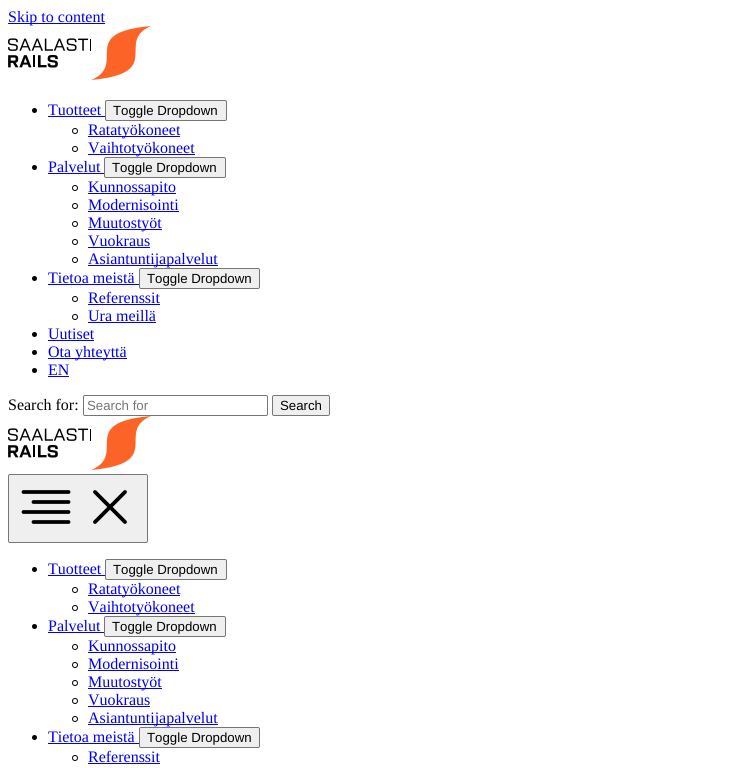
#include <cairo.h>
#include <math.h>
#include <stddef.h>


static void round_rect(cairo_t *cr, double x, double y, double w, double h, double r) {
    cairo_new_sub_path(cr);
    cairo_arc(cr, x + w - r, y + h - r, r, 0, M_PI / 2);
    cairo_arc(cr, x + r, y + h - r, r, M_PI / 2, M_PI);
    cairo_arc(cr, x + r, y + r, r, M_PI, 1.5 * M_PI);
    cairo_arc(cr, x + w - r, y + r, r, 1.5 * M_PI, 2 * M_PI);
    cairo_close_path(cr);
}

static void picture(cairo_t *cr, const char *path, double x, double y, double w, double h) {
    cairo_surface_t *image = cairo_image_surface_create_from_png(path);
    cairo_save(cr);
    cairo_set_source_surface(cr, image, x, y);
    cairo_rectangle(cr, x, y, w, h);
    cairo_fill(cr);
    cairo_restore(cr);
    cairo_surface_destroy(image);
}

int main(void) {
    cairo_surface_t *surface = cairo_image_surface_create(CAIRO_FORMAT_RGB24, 744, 768);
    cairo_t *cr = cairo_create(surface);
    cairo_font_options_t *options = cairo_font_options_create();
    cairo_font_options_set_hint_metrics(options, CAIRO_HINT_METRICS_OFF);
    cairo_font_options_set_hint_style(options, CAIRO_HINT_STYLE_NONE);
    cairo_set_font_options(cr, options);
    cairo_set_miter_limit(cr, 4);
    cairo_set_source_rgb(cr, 1, 1, 1);
    cairo_paint(cr);
    cairo_set_source_rgb(cr, 0, 0, 0.933);
    cairo_rectangle(cr, 8, 23, 97, 1);
    cairo_fill(cr);
    cairo_select_font_face(cr, "Liberation Serif", CAIRO_FONT_SLANT_NORMAL, CAIRO_FONT_WEIGHT_NORMAL);
    cairo_set_font_size(cr, 16);
    cairo_move_to(cr, 8, 22);
    cairo_show_text(cr, "Skip to content");
    picture(cr, "img1.png", 8, 26, 143, 54);
    cairo_set_source_rgb(cr, 0, 0, 0);
    cairo_arc(cr, 34.5, 110.5, 2.5, 0, 2 * M_PI);
    cairo_fill(cr);
    cairo_set_source_rgb(cr, 0, 0, 0.933);
    cairo_move_to(cr, 48, 115);
    cairo_show_text(cr, "Tuotteet");
    cairo_rectangle(cr, 48, 116, 57, 1);
    cairo_fill(cr);
    cairo_set_source_rgb(cr, 0.937, 0.937, 0.937);
    round_rect(cr, 105.5, 100.5, 121, 20, 1.5);
    cairo_fill_preserve(cr);
    cairo_set_source_rgb(cr, 0.463, 0.463, 0.463);
    cairo_set_line_width(cr, 1);
    cairo_stroke(cr);
    cairo_select_font_face(cr, "Liberation Sans", CAIRO_FONT_SLANT_NORMAL, CAIRO_FONT_WEIGHT_NORMAL);
    cairo_set_font_size(cr, 13.25);
    cairo_set_source_rgb(cr, 0, 0, 0);
    cairo_move_to(cr, 113, 115);
    cairo_show_text(cr, "Toggle Dropdown");
    cairo_new_path(cr);
    cairo_arc(cr, 75, 131, 2.5, 0, 2 * M_PI);
    cairo_stroke(cr);
    cairo_set_source_rgb(cr, 0, 0, 0.933);
    cairo_rectangle(cr, 88, 136, 92, 1);
    cairo_fill(cr);
    cairo_select_font_face(cr, "Liberation Serif", CAIRO_FONT_SLANT_NORMAL, CAIRO_FONT_WEIGHT_NORMAL);
    cairo_set_font_size(cr, 16);
    cairo_move_to(cr, 88, 135);
    cairo_show_text(cr, "Ratatyökoneet");
    cairo_new_path(cr);
    cairo_arc(cr, 75, 149, 2.5, 0, 2 * M_PI);
    cairo_set_source_rgb(cr, 0, 0, 0);
    cairo_stroke(cr);
    cairo_set_source_rgb(cr, 0, 0, 0.933);
    cairo_rectangle(cr, 88, 154, 107, 1);
    cairo_fill(cr);
    cairo_move_to(cr, 88, 153);
    cairo_show_text(cr, "Vaihtotyökoneet");
    cairo_set_source_rgb(cr, 0, 0, 0);
    cairo_new_path(cr);
    cairo_arc(cr, 34.5, 167.5, 2.5, 0, 2 * M_PI);
    cairo_fill(cr);
    cairo_set_source_rgb(cr, 0, 0, 0.933);
    cairo_move_to(cr, 48, 172);
    cairo_show_text(cr, "Palvelut");
    cairo_rectangle(cr, 48, 173, 56, 1);
    cairo_fill(cr);
    cairo_set_source_rgb(cr, 0.937, 0.937, 0.937);
    round_rect(cr, 104.5, 157.5, 121, 20, 1.5);
    cairo_fill_preserve(cr);
    cairo_set_source_rgb(cr, 0.463, 0.463, 0.463);
    cairo_stroke(cr);
    cairo_select_font_face(cr, "Liberation Sans", CAIRO_FONT_SLANT_NORMAL, CAIRO_FONT_WEIGHT_NORMAL);
    cairo_set_font_size(cr, 13.25);
    cairo_set_source_rgb(cr, 0, 0, 0);
    cairo_move_to(cr, 112, 172);
    cairo_show_text(cr, "Toggle Dropdown");
    cairo_new_path(cr);
    cairo_arc(cr, 75, 188, 2.5, 0, 2 * M_PI);
    cairo_stroke(cr);
    cairo_set_source_rgb(cr, 0, 0, 0.933);
    cairo_rectangle(cr, 88, 193, 88, 1);
    cairo_fill(cr);
    cairo_select_font_face(cr, "Liberation Serif", CAIRO_FONT_SLANT_NORMAL, CAIRO_FONT_WEIGHT_NORMAL);
    cairo_set_font_size(cr, 16);
    cairo_move_to(cr, 88, 192);
    cairo_show_text(cr, "Kunnossapito");
    cairo_new_path(cr);
    cairo_arc(cr, 75, 206, 2.5, 0, 2 * M_PI);
    cairo_set_source_rgb(cr, 0, 0, 0);
    cairo_stroke(cr);
    cairo_set_source_rgb(cr, 0, 0, 0.933);
    cairo_move_to(cr, 88, 210);
    cairo_show_text(cr, "Modernisointi");
    cairo_rectangle(cr, 88, 211, 91, 1);
    cairo_fill(cr);
    cairo_arc(cr, 75, 224, 2.5, 0, 2 * M_PI);
    cairo_set_source_rgb(cr, 0, 0, 0);
    cairo_stroke(cr);
    cairo_set_source_rgb(cr, 0, 0, 0.933);
    cairo_rectangle(cr, 88, 229, 74, 1);
    cairo_fill(cr);
    cairo_move_to(cr, 88, 228);
    cairo_show_text(cr, "Muutostyöt");
    cairo_new_path(cr);
    cairo_arc(cr, 75, 242, 2.5, 0, 2 * M_PI);
    cairo_set_source_rgb(cr, 0, 0, 0);
    cairo_stroke(cr);
    cairo_set_source_rgb(cr, 0, 0, 0.933);
    cairo_move_to(cr, 88, 246);
    cairo_show_text(cr, "Vuokraus");
    cairo_rectangle(cr, 88, 247, 62, 1);
    cairo_fill(cr);
    cairo_arc(cr, 75, 260, 2.5, 0, 2 * M_PI);
    cairo_set_source_rgb(cr, 0, 0, 0);
    cairo_stroke(cr);
    cairo_set_source_rgb(cr, 0, 0, 0.933);
    cairo_rectangle(cr, 88, 265, 130, 1);
    cairo_fill(cr);
    cairo_move_to(cr, 88, 264);
    cairo_show_text(cr, "Asiantuntijapalvelut");
    cairo_set_source_rgb(cr, 0, 0, 0);
    cairo_new_path(cr);
    cairo_arc(cr, 34.5, 278.5, 2.5, 0, 2 * M_PI);
    cairo_fill(cr);
    cairo_set_source_rgb(cr, 0, 0, 0.933);
    cairo_move_to(cr, 48, 283);
    cairo_show_text(cr, "Tietoa meistä");
    cairo_rectangle(cr, 48, 284, 91, 1);
    cairo_fill(cr);
    cairo_set_source_rgb(cr, 0.937, 0.937, 0.937);
    round_rect(cr, 139.5, 268.5, 120, 20, 1.5);
    cairo_fill_preserve(cr);
    cairo_set_source_rgb(cr, 0.463, 0.463, 0.463);
    cairo_stroke(cr);
    cairo_select_font_face(cr, "Liberation Sans", CAIRO_FONT_SLANT_NORMAL, CAIRO_FONT_WEIGHT_NORMAL);
    cairo_set_font_size(cr, 13.25);
    cairo_set_source_rgb(cr, 0, 0, 0);
    cairo_move_to(cr, 147, 283);
    cairo_show_text(cr, "Toggle Dropdown");
    cairo_new_path(cr);
    cairo_arc(cr, 75, 299, 2.5, 0, 2 * M_PI);
    cairo_stroke(cr);
    cairo_select_font_face(cr, "Liberation Serif", CAIRO_FONT_SLANT_NORMAL, CAIRO_FONT_WEIGHT_NORMAL);
    cairo_set_font_size(cr, 16);
    cairo_set_source_rgb(cr, 0, 0, 0.933);
    cairo_move_to(cr, 88, 303);
    cairo_show_text(cr, "Referenssit");
    cairo_rectangle(cr, 88, 304, 72, 1);
    cairo_fill(cr);
    cairo_arc(cr, 75, 317, 2.5, 0, 2 * M_PI);
    cairo_set_source_rgb(cr, 0, 0, 0);
    cairo_stroke(cr);
    cairo_set_source_rgb(cr, 0, 0, 0.933);
    cairo_move_to(cr, 88, 321);
    cairo_show_text(cr, "Ura meillä");
    cairo_rectangle(cr, 88, 322, 68, 1);
    cairo_fill(cr);
    cairo_set_source_rgb(cr, 0, 0, 0);
    cairo_arc(cr, 34.5, 334.5, 2.5, 0, 2 * M_PI);
    cairo_fill(cr);
    cairo_set_source_rgb(cr, 0, 0, 0.933);
    cairo_move_to(cr, 48, 339);
    cairo_show_text(cr, "Uutiset");
    cairo_rectangle(cr, 48, 340, 46, 1);
    cairo_fill(cr);
    cairo_set_source_rgb(cr, 0, 0, 0);
    cairo_arc(cr, 34.5, 352.5, 2.5, 0, 2 * M_PI);
    cairo_fill(cr);
    cairo_set_source_rgb(cr, 0, 0, 0.933);
    cairo_rectangle(cr, 48, 358, 79, 1);
    cairo_fill(cr);
    cairo_move_to(cr, 48, 357);
    cairo_show_text(cr, "Ota yhteyttä");
    cairo_set_source_rgb(cr, 0, 0, 0);
    cairo_new_path(cr);
    cairo_arc(cr, 34.5, 370.5, 2.5, 0, 2 * M_PI);
    cairo_fill(cr);
    cairo_set_source_rgb(cr, 0, 0, 0.933);
    cairo_move_to(cr, 48, 375);
    cairo_show_text(cr, "EN");
    cairo_rectangle(cr, 48, 376, 21, 1);
    cairo_fill(cr);
    cairo_set_source_rgb(cr, 0, 0, 0);
    cairo_move_to(cr, 8, 410);
    cairo_show_text(cr, "Search for:");
    round_rect(cr, 83.5, 395.5, 184, 20, 1.5);
    cairo_set_source_rgb(cr, 0.463, 0.463, 0.463);
    cairo_stroke(cr);
    cairo_select_font_face(cr, "Liberation Sans", CAIRO_FONT_SLANT_NORMAL, CAIRO_FONT_WEIGHT_NORMAL);
    cairo_set_font_size(cr, 13.25);
    cairo_set_source_rgb(cr, 0.459, 0.459, 0.459);
    cairo_move_to(cr, 87, 410);
    cairo_show_text(cr, "Search for");
    cairo_set_source_rgb(cr, 0.937, 0.937, 0.937);
    round_rect(cr, 272.5, 395.5, 57, 20, 1.5);
    cairo_fill_preserve(cr);
    cairo_set_source_rgb(cr, 0.463, 0.463, 0.463);
    cairo_stroke(cr);
    cairo_set_source_rgb(cr, 0, 0, 0);
    cairo_move_to(cr, 280, 410);
    cairo_show_text(cr, "Search");
    picture(cr, "img1.png", 8, 416, 143, 54);
    cairo_set_source_rgb(cr, 0.937, 0.937, 0.937);
    round_rect(cr, 8.5, 474.5, 139, 68, 1.5);
    cairo_fill_preserve(cr);
    cairo_set_source_rgb(cr, 0.463, 0.463, 0.463);
    cairo_stroke(cr);
    cairo_new_path(cr);
    cairo_move_to(cr, 68.5, 502);
    cairo_line_to(cr, 33.5, 502);
    cairo_move_to(cr, 68.5, 492);
    cairo_line_to(cr, 23.5, 492);
    cairo_move_to(cr, 68.5, 512);
    cairo_line_to(cr, 23.5, 512);
    cairo_move_to(cr, 68.5, 522);
    cairo_line_to(cr, 33.5, 522);
    cairo_set_source_rgb(cr, 0, 0, 0);
    cairo_set_line_width(cr, 3.8);
    cairo_set_line_cap(cr, CAIRO_LINE_CAP_ROUND);
    cairo_set_line_join(cr, CAIRO_LINE_JOIN_ROUND);
    cairo_stroke(cr);
    cairo_new_path(cr);
    cairo_move_to(cr, 125, 492);
    cairo_line_to(cr, 95, 522);
    cairo_move_to(cr, 95, 492);
    cairo_line_to(cr, 125, 522);
    cairo_stroke(cr);
    cairo_arc(cr, 34.5, 569.5, 2.5, 0, 2 * M_PI);
    cairo_fill(cr);
    cairo_select_font_face(cr, "Liberation Serif", CAIRO_FONT_SLANT_NORMAL, CAIRO_FONT_WEIGHT_NORMAL);
    cairo_set_font_size(cr, 16);
    cairo_set_source_rgb(cr, 0, 0, 0.933);
    cairo_move_to(cr, 48, 574);
    cairo_show_text(cr, "Tuotteet");
    cairo_rectangle(cr, 48, 575, 57, 1);
    cairo_fill(cr);
    cairo_set_source_rgb(cr, 0.937, 0.937, 0.937);
    round_rect(cr, 105.5, 559.5, 121, 20, 1.5);
    cairo_fill_preserve(cr);
    cairo_set_source_rgb(cr, 0.463, 0.463, 0.463);
    cairo_set_line_width(cr, 1);
    cairo_set_line_cap(cr, CAIRO_LINE_CAP_BUTT);
    cairo_set_line_join(cr, CAIRO_LINE_JOIN_MITER);
    cairo_stroke(cr);
    cairo_select_font_face(cr, "Liberation Sans", CAIRO_FONT_SLANT_NORMAL, CAIRO_FONT_WEIGHT_NORMAL);
    cairo_set_font_size(cr, 13.25);
    cairo_set_source_rgb(cr, 0, 0, 0);
    cairo_move_to(cr, 113, 574);
    cairo_show_text(cr, "Toggle Dropdown");
    cairo_new_path(cr);
    cairo_arc(cr, 75, 590, 2.5, 0, 2 * M_PI);
    cairo_stroke(cr);
    cairo_set_source_rgb(cr, 0, 0, 0.933);
    cairo_rectangle(cr, 88, 595, 92, 1);
    cairo_fill(cr);
    cairo_select_font_face(cr, "Liberation Serif", CAIRO_FONT_SLANT_NORMAL, CAIRO_FONT_WEIGHT_NORMAL);
    cairo_set_font_size(cr, 16);
    cairo_move_to(cr, 88, 594);
    cairo_show_text(cr, "Ratatyökoneet");
    cairo_new_path(cr);
    cairo_arc(cr, 75, 608, 2.5, 0, 2 * M_PI);
    cairo_set_source_rgb(cr, 0, 0, 0);
    cairo_stroke(cr);
    cairo_set_source_rgb(cr, 0, 0, 0.933);
    cairo_rectangle(cr, 88, 613, 107, 1);
    cairo_fill(cr);
    cairo_move_to(cr, 88, 612);
    cairo_show_text(cr, "Vaihtotyökoneet");
    cairo_set_source_rgb(cr, 0, 0, 0);
    cairo_new_path(cr);
    cairo_arc(cr, 34.5, 626.5, 2.5, 0, 2 * M_PI);
    cairo_fill(cr);
    cairo_set_source_rgb(cr, 0, 0, 0.933);
    cairo_move_to(cr, 48, 631);
    cairo_show_text(cr, "Palvelut");
    cairo_rectangle(cr, 48, 632, 56, 1);
    cairo_fill(cr);
    cairo_set_source_rgb(cr, 0.937, 0.937, 0.937);
    round_rect(cr, 104.5, 616.5, 121, 20, 1.5);
    cairo_fill_preserve(cr);
    cairo_set_source_rgb(cr, 0.463, 0.463, 0.463);
    cairo_stroke(cr);
    cairo_select_font_face(cr, "Liberation Sans", CAIRO_FONT_SLANT_NORMAL, CAIRO_FONT_WEIGHT_NORMAL);
    cairo_set_font_size(cr, 13.25);
    cairo_set_source_rgb(cr, 0, 0, 0);
    cairo_move_to(cr, 112, 631);
    cairo_show_text(cr, "Toggle Dropdown");
    cairo_new_path(cr);
    cairo_arc(cr, 75, 647, 2.5, 0, 2 * M_PI);
    cairo_stroke(cr);
    cairo_set_source_rgb(cr, 0, 0, 0.933);
    cairo_rectangle(cr, 88, 652, 88, 1);
    cairo_fill(cr);
    cairo_select_font_face(cr, "Liberation Serif", CAIRO_FONT_SLANT_NORMAL, CAIRO_FONT_WEIGHT_NORMAL);
    cairo_set_font_size(cr, 16);
    cairo_move_to(cr, 88, 651);
    cairo_show_text(cr, "Kunnossapito");
    cairo_new_path(cr);
    cairo_arc(cr, 75, 665, 2.5, 0, 2 * M_PI);
    cairo_set_source_rgb(cr, 0, 0, 0);
    cairo_stroke(cr);
    cairo_set_source_rgb(cr, 0, 0, 0.933);
    cairo_move_to(cr, 88, 669);
    cairo_show_text(cr, "Modernisointi");
    cairo_rectangle(cr, 88, 670, 91, 1);
    cairo_fill(cr);
    cairo_arc(cr, 75, 683, 2.5, 0, 2 * M_PI);
    cairo_set_source_rgb(cr, 0, 0, 0);
    cairo_stroke(cr);
    cairo_set_source_rgb(cr, 0, 0, 0.933);
    cairo_rectangle(cr, 88, 688, 74, 1);
    cairo_fill(cr);
    cairo_move_to(cr, 88, 687);
    cairo_show_text(cr, "Muutostyöt");
    cairo_new_path(cr);
    cairo_arc(cr, 75, 701, 2.5, 0, 2 * M_PI);
    cairo_set_source_rgb(cr, 0, 0, 0);
    cairo_stroke(cr);
    cairo_set_source_rgb(cr, 0, 0, 0.933);
    cairo_move_to(cr, 88, 705);
    cairo_show_text(cr, "Vuokraus");
    cairo_rectangle(cr, 88, 706, 62, 1);
    cairo_fill(cr);
    cairo_arc(cr, 75, 719, 2.5, 0, 2 * M_PI);
    cairo_set_source_rgb(cr, 0, 0, 0);
    cairo_stroke(cr);
    cairo_set_source_rgb(cr, 0, 0, 0.933);
    cairo_rectangle(cr, 88, 724, 130, 1);
    cairo_fill(cr);
    cairo_move_to(cr, 88, 723);
    cairo_show_text(cr, "Asiantuntijapalvelut");
    cairo_set_source_rgb(cr, 0, 0, 0);
    cairo_new_path(cr);
    cairo_arc(cr, 34.5, 737.5, 2.5, 0, 2 * M_PI);
    cairo_fill(cr);
    cairo_set_source_rgb(cr, 0, 0, 0.933);
    cairo_move_to(cr, 48, 742);
    cairo_show_text(cr, "Tietoa meistä");
    cairo_rectangle(cr, 48, 743, 91, 1);
    cairo_fill(cr);
    cairo_set_source_rgb(cr, 0.937, 0.937, 0.937);
    round_rect(cr, 139.5, 727.5, 120, 20, 1.5);
    cairo_fill_preserve(cr);
    cairo_set_source_rgb(cr, 0.463, 0.463, 0.463);
    cairo_stroke(cr);
    cairo_select_font_face(cr, "Liberation Sans", CAIRO_FONT_SLANT_NORMAL, CAIRO_FONT_WEIGHT_NORMAL);
    cairo_set_font_size(cr, 13.25);
    cairo_set_source_rgb(cr, 0, 0, 0);
    cairo_move_to(cr, 147, 742);
    cairo_show_text(cr, "Toggle Dropdown");
    cairo_new_path(cr);
    cairo_arc(cr, 75, 758, 2.5, 0, 2 * M_PI);
    cairo_stroke(cr);
    cairo_select_font_face(cr, "Liberation Serif", CAIRO_FONT_SLANT_NORMAL, CAIRO_FONT_WEIGHT_NORMAL);
    cairo_set_font_size(cr, 16);
    cairo_set_source_rgb(cr, 0, 0, 0.933);
    cairo_move_to(cr, 88, 762);
    cairo_show_text(cr, "Referenssit");
    cairo_rectangle(cr, 88, 763, 72, 1);
    cairo_fill(cr);
    cairo_surface_write_to_png(surface, "page.png");
    cairo_font_options_destroy(options);
    cairo_destroy(cr);
    cairo_surface_destroy(surface);
    return 0;
}
